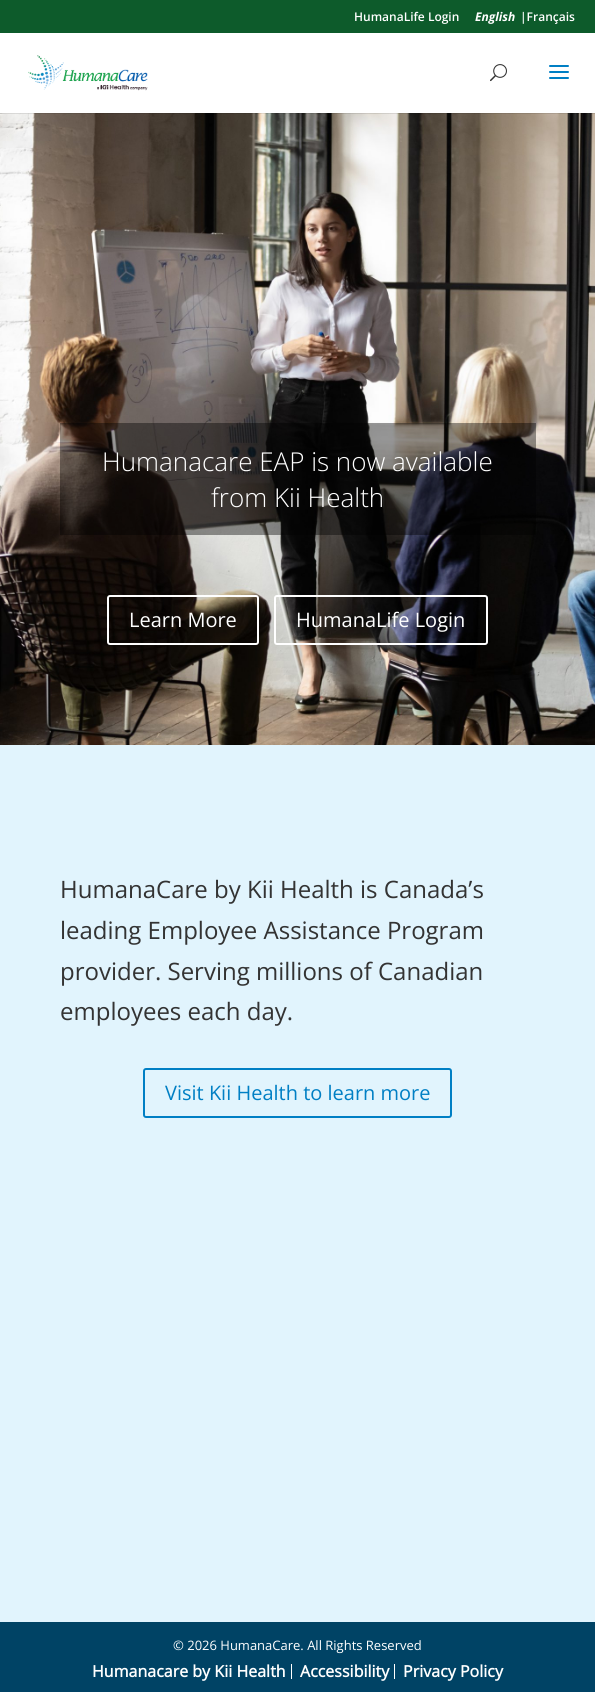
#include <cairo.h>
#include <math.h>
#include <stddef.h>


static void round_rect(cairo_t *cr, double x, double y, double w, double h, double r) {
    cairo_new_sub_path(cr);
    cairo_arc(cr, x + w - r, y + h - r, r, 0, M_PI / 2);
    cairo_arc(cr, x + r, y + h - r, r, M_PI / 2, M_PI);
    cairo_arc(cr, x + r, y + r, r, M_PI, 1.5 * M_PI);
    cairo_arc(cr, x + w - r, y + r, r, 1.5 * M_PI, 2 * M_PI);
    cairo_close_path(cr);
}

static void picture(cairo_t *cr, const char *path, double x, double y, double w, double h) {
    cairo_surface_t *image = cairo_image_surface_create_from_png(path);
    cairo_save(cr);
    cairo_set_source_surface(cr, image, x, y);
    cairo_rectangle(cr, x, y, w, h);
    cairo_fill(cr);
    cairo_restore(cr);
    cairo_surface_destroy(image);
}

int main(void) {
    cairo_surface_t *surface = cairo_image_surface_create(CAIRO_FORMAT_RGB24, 595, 1692);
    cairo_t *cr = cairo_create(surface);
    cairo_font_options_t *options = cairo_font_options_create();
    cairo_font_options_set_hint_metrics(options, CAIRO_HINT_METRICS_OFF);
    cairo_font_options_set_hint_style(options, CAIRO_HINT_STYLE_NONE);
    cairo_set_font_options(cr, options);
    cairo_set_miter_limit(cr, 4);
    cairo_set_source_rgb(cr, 0.882, 0.957, 0.992);
    cairo_paint(cr);
    cairo_set_source_rgb(cr, 0.051, 0.357, 0.169);
    cairo_rectangle(cr, 0, 0, 595, 33);
    cairo_fill(cr);
    cairo_select_font_face(cr, "Open Sans SemiBold", CAIRO_FONT_SLANT_NORMAL, CAIRO_FONT_WEIGHT_NORMAL);
    cairo_set_font_size(cr, 12);
    cairo_set_source_rgb(cr, 1, 1, 1);
    cairo_move_to(cr, 354, 21);
    cairo_show_text(cr, "HumanaLife Login");
    cairo_select_font_face(cr, "Open Sans", CAIRO_FONT_SLANT_ITALIC, CAIRO_FONT_WEIGHT_BOLD);
    cairo_move_to(cr, 475, 21);
    cairo_show_text(cr, "English");
    cairo_select_font_face(cr, "Open Sans SemiBold", CAIRO_FONT_SLANT_NORMAL, CAIRO_FONT_WEIGHT_NORMAL);
    cairo_move_to(cr, 520, 21);
    cairo_show_text(cr, "|Français");
    picture(cr, "img4.png", 0, 113, 595, 632);
    cairo_set_source_rgba(cr, 0, 0, 0, 0.1);
    cairo_rectangle(cr, 0, 113, 595, 1);
    cairo_fill(cr);
    cairo_set_source_rgb(cr, 1, 1, 1);
    cairo_rectangle(cr, 0, 33, 595, 80);
    cairo_fill(cr);
    picture(cr, "img1.png", 28, 55, 120, 36);
    picture(cr, "img2.png", 490, 64, 17, 18);
    picture(cr, "img3.png", 549, 65, 20, 14);
    cairo_set_source_rgba(cr, 0, 0, 0, 0.4);
    cairo_rectangle(cr, 60, 423, 476, 112);
    cairo_fill(cr);
    cairo_select_font_face(cr, "Open Sans Light", CAIRO_FONT_SLANT_NORMAL, CAIRO_FONT_WEIGHT_NORMAL);
    cairo_set_font_size(cr, 26);
    cairo_set_source_rgb(cr, 1, 1, 1);
    cairo_move_to(cr, 102, 471);
    cairo_show_text(cr, "Humanacare EAP is now available");
    cairo_move_to(cr, 211, 507);
    cairo_show_text(cr, "from Kii Health");
    round_rect(cr, 108, 596, 150, 48, 2);
    cairo_stroke(cr);
    cairo_select_font_face(cr, "Open Sans", CAIRO_FONT_SLANT_NORMAL, CAIRO_FONT_WEIGHT_NORMAL);
    cairo_set_font_size(cr, 20);
    cairo_move_to(cr, 129, 627);
    cairo_show_text(cr, "Learn More");
    round_rect(cr, 275, 596, 212, 48, 2);
    cairo_stroke(cr);
    cairo_move_to(cr, 296, 627);
    cairo_show_text(cr, "HumanaLife Login");
    cairo_set_font_size(cr, 24);
    cairo_set_source_rgb(cr, 0.2, 0.2, 0.2);
    cairo_move_to(cr, 60, 898);
    cairo_show_text(cr, "HumanaCare by Kii Health is Canada’s");
    cairo_move_to(cr, 60, 939);
    cairo_show_text(cr, "leading Employee Assistance Program");
    cairo_move_to(cr, 60, 980);
    cairo_show_text(cr, "provider. Serving millions of Canadian");
    cairo_move_to(cr, 60, 1020);
    cairo_show_text(cr, "employees each day.");
    round_rect(cr, 144, 1069, 307, 48, 2);
    cairo_set_source_rgb(cr, 0, 0.498, 0.769);
    cairo_stroke(cr);
    cairo_set_font_size(cr, 20);
    cairo_move_to(cr, 165, 1100);
    cairo_show_text(cr, "Visit Kii Health to learn more");
    cairo_set_source_rgb(cr, 0, 0.263, 0.396);
    cairo_rectangle(cr, 0, 1622, 595, 70);
    cairo_fill(cr);
    cairo_set_font_size(cr, 13);
    cairo_set_source_rgb(cr, 1, 1, 1);
    cairo_move_to(cr, 173, 1650);
    cairo_show_text(cr, "© 2026 HumanaCare. All Rights Reserved");
    cairo_rectangle(cr, 291, 1664, 1, 15);
    cairo_fill(cr);
    cairo_select_font_face(cr, "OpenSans", CAIRO_FONT_SLANT_NORMAL, CAIRO_FONT_WEIGHT_BOLD);
    cairo_set_font_size(cr, 16);
    cairo_move_to(cr, 92, 1677);
    cairo_show_text(cr, "Humanacare by Kii Health");
    cairo_rectangle(cr, 394, 1664, 1, 15);
    cairo_fill(cr);
    cairo_move_to(cr, 300, 1677);
    cairo_show_text(cr, "Accessibility");
    cairo_move_to(cr, 403, 1677);
    cairo_show_text(cr, "Privacy Policy");
    cairo_surface_write_to_png(surface, "page.png");
    cairo_font_options_destroy(options);
    cairo_destroy(cr);
    cairo_surface_destroy(surface);
    return 0;
}
